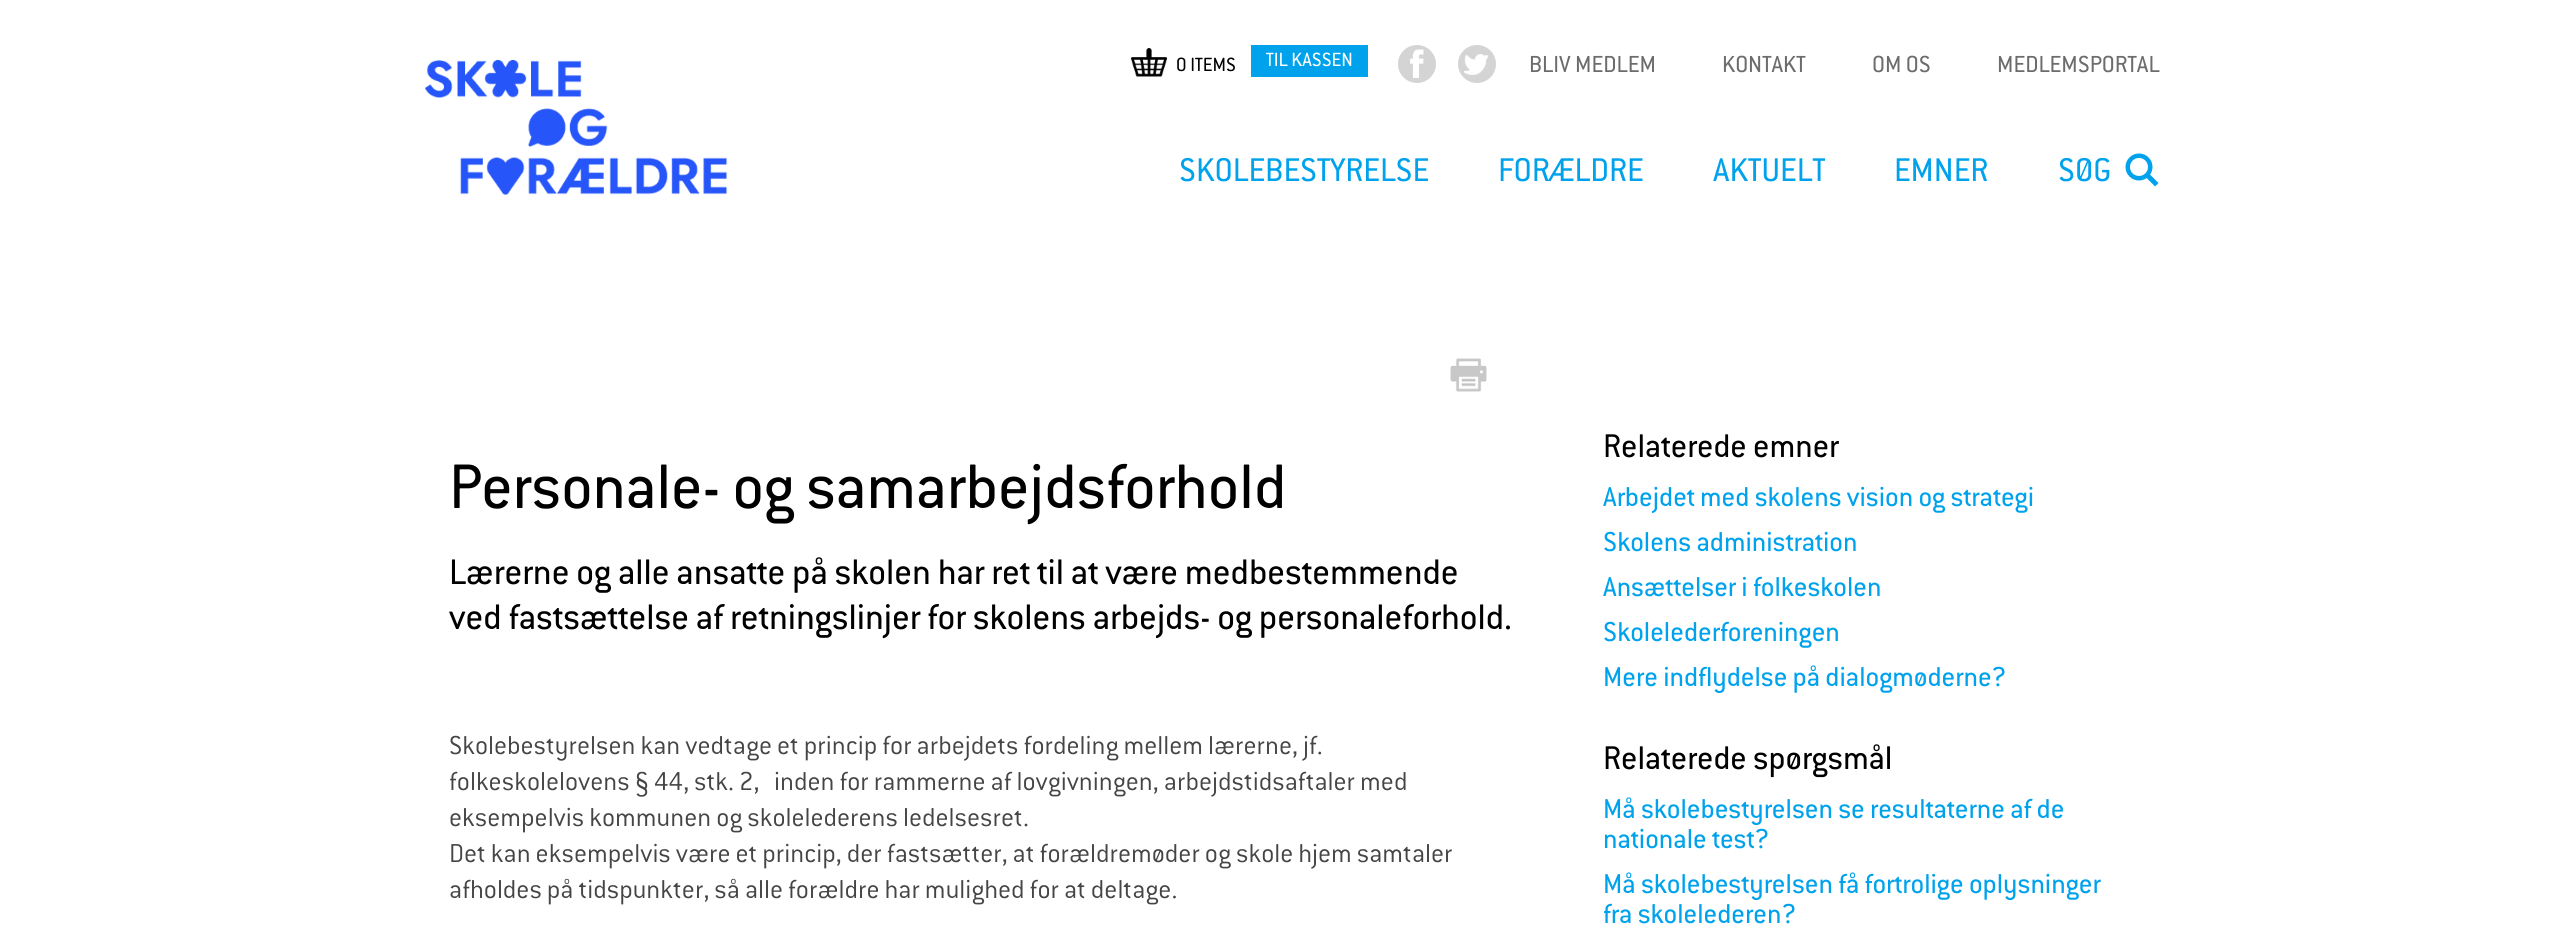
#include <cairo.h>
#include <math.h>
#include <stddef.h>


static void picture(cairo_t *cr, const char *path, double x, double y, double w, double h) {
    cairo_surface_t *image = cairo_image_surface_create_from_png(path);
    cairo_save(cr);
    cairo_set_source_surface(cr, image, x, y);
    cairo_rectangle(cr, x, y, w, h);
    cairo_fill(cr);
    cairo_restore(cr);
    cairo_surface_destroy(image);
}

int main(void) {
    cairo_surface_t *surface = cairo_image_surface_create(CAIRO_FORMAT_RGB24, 2563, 948);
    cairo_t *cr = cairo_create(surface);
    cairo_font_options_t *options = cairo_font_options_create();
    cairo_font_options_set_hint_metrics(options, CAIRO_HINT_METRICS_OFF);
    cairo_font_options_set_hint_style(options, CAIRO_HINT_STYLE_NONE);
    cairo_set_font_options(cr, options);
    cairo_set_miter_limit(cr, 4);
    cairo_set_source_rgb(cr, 1, 1, 1);
    cairo_paint(cr);
    picture(cr, "img1.png", 424, 60, 304, 135);
    picture(cr, "img2.png", 1131, 48, 36, 29);
    cairo_select_font_face(cr, "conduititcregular", CAIRO_FONT_SLANT_NORMAL, CAIRO_FONT_WEIGHT_NORMAL);
    cairo_set_font_size(cr, 21);
    cairo_set_source_rgb(cr, 0, 0, 0);
    cairo_move_to(cr, 1176, 71);
    cairo_show_text(cr, "0 ITEMS");
    cairo_set_source_rgb(cr, 0, 0.635, 0.922);
    cairo_rectangle(cr, 1251, 45, 117, 32);
    cairo_fill(cr);
    cairo_set_source_rgb(cr, 1, 1, 1);
    cairo_move_to(cr, 1266, 66);
    cairo_show_text(cr, "TIL KASSEN");
    cairo_set_source_rgb(cr, 0.831, 0.831, 0.831);
    cairo_new_path(cr);
    cairo_arc(cr, 1417, 64, 19, 0, 2 * M_PI);
    cairo_fill(cr);
    picture(cr, "img3.png", 1410, 49, 14, 29);
    cairo_arc(cr, 1477, 64, 19, 0, 2 * M_PI);
    cairo_fill(cr);
    picture(cr, "img4.png", 1464, 54, 24, 21);
    cairo_set_font_size(cr, 25.5);
    cairo_set_source_rgb(cr, 0.424, 0.424, 0.424);
    cairo_move_to(cr, 1529, 72);
    cairo_show_text(cr, "BLIV MEDLEM");
    cairo_move_to(cr, 1722, 72);
    cairo_show_text(cr, "KONTAKT");
    cairo_move_to(cr, 1872, 72);
    cairo_show_text(cr, "OM OS");
    cairo_move_to(cr, 1997, 72);
    cairo_show_text(cr, "MEDLEMSPORTAL");
    cairo_set_font_size(cr, 36);
    cairo_set_source_rgb(cr, 0, 0.635, 0.922);
    cairo_move_to(cr, 1179, 181);
    cairo_show_text(cr, "SKOLEBESTYRELSE");
    cairo_move_to(cr, 1498, 181);
    cairo_show_text(cr, "FORÆLDRE");
    cairo_move_to(cr, 1713, 181);
    cairo_show_text(cr, "AKTUELT");
    cairo_move_to(cr, 1894, 181);
    cairo_show_text(cr, "EMNER");
    cairo_move_to(cr, 2058, 181);
    cairo_show_text(cr, "SØG");
    picture(cr, "img5.png", 2125, 153, 34, 34);
    picture(cr, "img6.png", 1450, 358, 37, 34);
    cairo_set_font_size(cr, 69);
    cairo_set_source_rgb(cr, 0, 0, 0);
    cairo_move_to(cr, 449, 508);
    cairo_show_text(cr, "Personale- og samarbejdsforhold");
    cairo_set_font_size(cr, 39);
    cairo_move_to(cr, 449, 584);
    cairo_show_text(cr, "Lærerne og alle ansatte på skolen har ret til at være medbestemmende");
    cairo_move_to(cr, 449, 629);
    cairo_show_text(cr, "ved fastsættelse af retningslinjer for skolens arbejds- og personaleforhold.");
    cairo_select_font_face(cr, "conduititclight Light", CAIRO_FONT_SLANT_NORMAL, CAIRO_FONT_WEIGHT_NORMAL);
    cairo_set_font_size(cr, 28.5);
    cairo_set_source_rgb(cr, 0.271, 0.271, 0.271);
    cairo_move_to(cr, 449, 754);
    cairo_show_text(cr, "Skolebestyrelsen kan vedtage et princip for arbejdets fordeling mellem lærerne, jf.");
    cairo_move_to(cr, 449, 790);
    cairo_show_text(cr, "folkeskolelovens § 44, stk. 2,");
    cairo_move_to(cr, 774, 790);
    cairo_show_text(cr, "inden for rammerne af lovgivningen, arbejdstidsaftaler med");
    cairo_move_to(cr, 449, 826);
    cairo_show_text(cr, "eksempelvis kommunen og skolelederens ledelsesret.");
    cairo_move_to(cr, 449, 862);
    cairo_show_text(cr, "Det kan eksempelvis være et princip, der fastsætter, at forældremøder og skole hjem samtaler");
    cairo_move_to(cr, 449, 898);
    cairo_show_text(cr, "afholdes på tidspunkter, så alle forældre har mulighed for at deltage.");
    cairo_select_font_face(cr, "conduititcregular", CAIRO_FONT_SLANT_NORMAL, CAIRO_FONT_WEIGHT_NORMAL);
    cairo_set_font_size(cr, 36);
    cairo_set_source_rgb(cr, 0, 0, 0);
    cairo_move_to(cr, 1603, 457);
    cairo_show_text(cr, "Relaterede emner");
    cairo_set_font_size(cr, 30);
    cairo_set_source_rgb(cr, 0, 0.635, 0.922);
    cairo_move_to(cr, 1603, 506);
    cairo_show_text(cr, "Arbejdet med skolens vision og strategi");
    cairo_move_to(cr, 1603, 551);
    cairo_show_text(cr, "Skolens administration");
    cairo_move_to(cr, 1603, 596);
    cairo_show_text(cr, "Ansættelser i folkeskolen");
    cairo_move_to(cr, 1603, 641);
    cairo_show_text(cr, "Skolelederforeningen");
    cairo_move_to(cr, 1603, 686);
    cairo_show_text(cr, "Mere indflydelse på dialogmøderne?");
    cairo_set_font_size(cr, 36);
    cairo_set_source_rgb(cr, 0, 0, 0);
    cairo_move_to(cr, 1603, 769);
    cairo_show_text(cr, "Relaterede spørgsmål");
    cairo_set_font_size(cr, 30);
    cairo_set_source_rgb(cr, 0, 0.635, 0.922);
    cairo_move_to(cr, 1603, 818);
    cairo_show_text(cr, "Må skolebestyrelsen se resultaterne af de");
    cairo_move_to(cr, 1603, 848);
    cairo_show_text(cr, "nationale test?");
    cairo_move_to(cr, 1603, 893);
    cairo_show_text(cr, "Må skolebestyrelsen få fortrolige oplysninger");
    cairo_move_to(cr, 1603, 923);
    cairo_show_text(cr, "fra skolelederen?");
    cairo_surface_write_to_png(surface, "page.png");
    cairo_font_options_destroy(options);
    cairo_destroy(cr);
    cairo_surface_destroy(surface);
    return 0;
}
